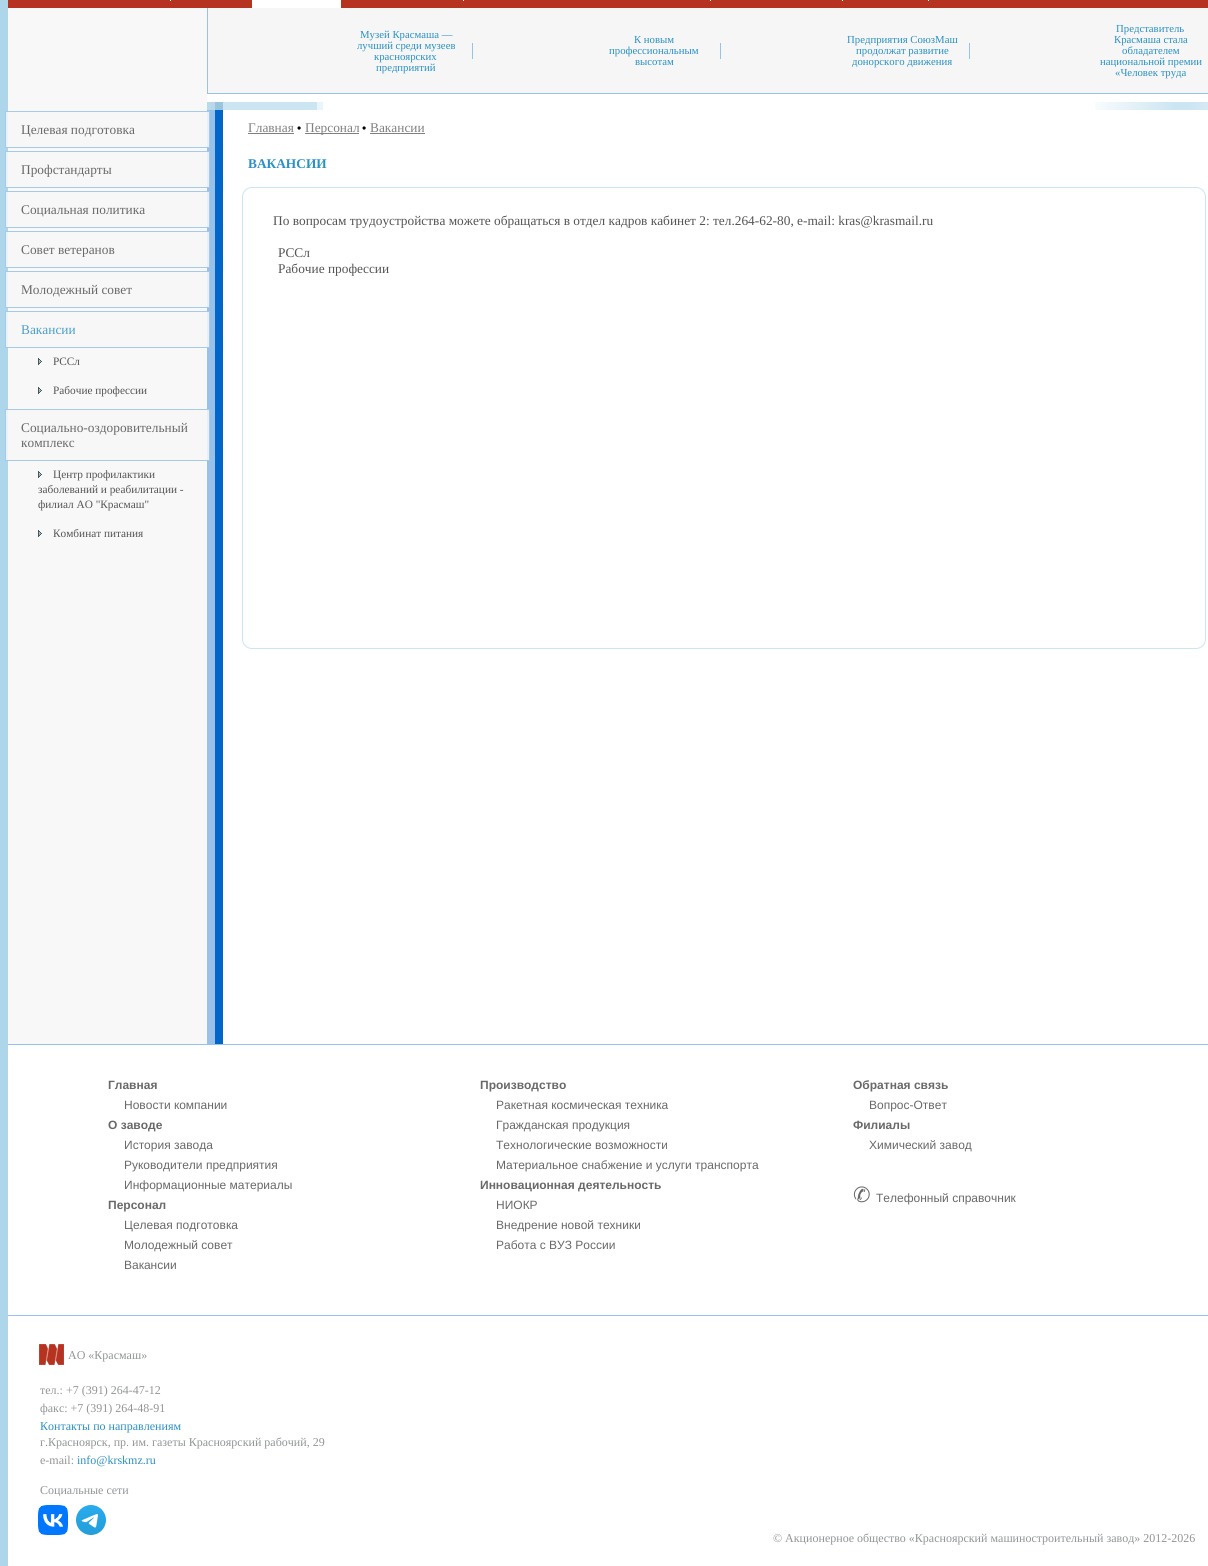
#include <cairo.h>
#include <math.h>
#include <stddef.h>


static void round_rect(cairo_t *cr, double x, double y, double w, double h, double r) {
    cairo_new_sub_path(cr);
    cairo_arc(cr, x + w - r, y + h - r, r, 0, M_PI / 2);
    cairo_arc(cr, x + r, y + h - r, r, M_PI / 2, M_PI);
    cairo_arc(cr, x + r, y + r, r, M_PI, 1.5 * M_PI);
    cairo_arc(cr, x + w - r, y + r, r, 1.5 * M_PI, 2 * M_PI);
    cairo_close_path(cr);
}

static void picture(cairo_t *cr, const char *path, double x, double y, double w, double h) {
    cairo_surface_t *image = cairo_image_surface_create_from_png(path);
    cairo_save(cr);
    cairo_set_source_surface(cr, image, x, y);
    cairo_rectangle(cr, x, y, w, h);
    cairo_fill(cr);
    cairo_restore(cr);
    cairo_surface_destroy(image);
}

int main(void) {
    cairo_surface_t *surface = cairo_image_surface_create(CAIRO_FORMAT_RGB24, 1208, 1566);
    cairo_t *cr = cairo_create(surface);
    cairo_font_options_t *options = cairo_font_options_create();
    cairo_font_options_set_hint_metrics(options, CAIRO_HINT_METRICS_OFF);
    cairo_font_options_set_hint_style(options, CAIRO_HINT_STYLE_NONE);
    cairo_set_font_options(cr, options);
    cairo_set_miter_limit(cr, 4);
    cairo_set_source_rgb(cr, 0.678, 0.839, 0.918);
    cairo_paint(cr);
    cairo_set_source_rgb(cr, 1, 1, 1);
    cairo_rectangle(cr, 8, 94, 1200, 1472);
    cairo_fill(cr);
    cairo_set_source_rgb(cr, 0.714, 0.2, 0.129);
    cairo_rectangle(cr, 8, 0, 1200, 8);
    cairo_fill(cr);
    cairo_set_source_rgb(cr, 1, 1, 1);
    cairo_rectangle(cr, 170, 0, 1, 1);
    cairo_fill(cr);
    cairo_rectangle(cr, 252, 0, 89, 8);
    cairo_fill(cr);
    cairo_rectangle(cr, 463, 0, 1, 1);
    cairo_fill(cr);
    cairo_rectangle(cr, 710, 0, 1, 1);
    cairo_fill(cr);
    cairo_rectangle(cr, 842, 0, 1, 1);
    cairo_fill(cr);
    cairo_rectangle(cr, 928, 0, 1, 1);
    cairo_fill(cr);
    cairo_set_source_rgb(cr, 0.969, 0.969, 0.969);
    cairo_rectangle(cr, 8, 8, 199, 1036);
    cairo_fill(cr);
    picture(cr, "img5.png", 207, 110, 16, 918);
    cairo_set_source_rgba(cr, 0.969, 0.969, 0.969, 0.85);
    cairo_rectangle(cr, 5, 111, 205, 37);
    cairo_fill(cr);
    cairo_rectangle(cr, 5.5, 111.5, 204, 36);
    cairo_set_source_rgba(cr, 0.596, 0.757, 0.918, 0.85);
    cairo_set_line_width(cr, 1);
    cairo_stroke(cr);
    cairo_select_font_face(cr, "Liberation Serif", CAIRO_FONT_SLANT_NORMAL, CAIRO_FONT_WEIGHT_NORMAL);
    cairo_set_font_size(cr, 13.35);
    cairo_set_source_rgb(cr, 0.412, 0.412, 0.412);
    cairo_move_to(cr, 21, 134);
    cairo_show_text(cr, "Целевая подготовка");
    cairo_set_source_rgba(cr, 0.969, 0.969, 0.969, 0.85);
    cairo_rectangle(cr, 5, 151, 205, 37);
    cairo_fill(cr);
    cairo_rectangle(cr, 5.5, 151.5, 204, 36);
    cairo_set_source_rgba(cr, 0.596, 0.757, 0.918, 0.85);
    cairo_stroke(cr);
    cairo_set_source_rgb(cr, 0.412, 0.412, 0.412);
    cairo_move_to(cr, 21, 174);
    cairo_show_text(cr, "Профстандарты");
    cairo_set_source_rgba(cr, 0.969, 0.969, 0.969, 0.85);
    cairo_rectangle(cr, 5, 191, 205, 37);
    cairo_fill(cr);
    cairo_rectangle(cr, 5.5, 191.5, 204, 36);
    cairo_set_source_rgba(cr, 0.596, 0.757, 0.918, 0.85);
    cairo_stroke(cr);
    cairo_set_source_rgb(cr, 0.412, 0.412, 0.412);
    cairo_move_to(cr, 21, 214);
    cairo_show_text(cr, "Социальная политика");
    cairo_set_source_rgba(cr, 0.969, 0.969, 0.969, 0.85);
    cairo_rectangle(cr, 5, 231, 205, 37);
    cairo_fill(cr);
    cairo_rectangle(cr, 5.5, 231.5, 204, 36);
    cairo_set_source_rgba(cr, 0.596, 0.757, 0.918, 0.85);
    cairo_stroke(cr);
    cairo_set_source_rgb(cr, 0.412, 0.412, 0.412);
    cairo_move_to(cr, 21, 254);
    cairo_show_text(cr, "Совет ветеранов");
    cairo_set_source_rgba(cr, 0.969, 0.969, 0.969, 0.85);
    cairo_rectangle(cr, 5, 271, 205, 37);
    cairo_fill(cr);
    cairo_rectangle(cr, 5.5, 271.5, 204, 36);
    cairo_set_source_rgba(cr, 0.596, 0.757, 0.918, 0.85);
    cairo_stroke(cr);
    cairo_set_source_rgb(cr, 0.412, 0.412, 0.412);
    cairo_move_to(cr, 21, 294);
    cairo_show_text(cr, "Молодежный совет");
    cairo_set_source_rgba(cr, 0.969, 0.969, 0.969, 0.85);
    cairo_rectangle(cr, 5, 311, 205, 37);
    cairo_fill(cr);
    cairo_rectangle(cr, 5.5, 311.5, 204, 36);
    cairo_set_source_rgba(cr, 0.596, 0.757, 0.918, 0.85);
    cairo_stroke(cr);
    cairo_set_source_rgb(cr, 0.29, 0.624, 0.804);
    cairo_move_to(cr, 21, 334);
    cairo_show_text(cr, "Вакансии");
    picture(cr, "img1.png", 38, 358, 4, 7);
    cairo_set_font_size(cr, 11.3);
    cairo_set_source_rgb(cr, 0.329, 0.329, 0.329);
    cairo_move_to(cr, 53, 365);
    cairo_show_text(cr, "РССл");
    picture(cr, "img1.png", 38, 387, 4, 7);
    cairo_move_to(cr, 53, 394);
    cairo_show_text(cr, "Рабочие профессии");
    cairo_set_source_rgba(cr, 0.969, 0.969, 0.969, 0.85);
    cairo_rectangle(cr, 5, 409, 205, 52);
    cairo_fill(cr);
    cairo_rectangle(cr, 5.5, 409.5, 204, 51);
    cairo_set_source_rgba(cr, 0.596, 0.757, 0.918, 0.85);
    cairo_stroke(cr);
    cairo_set_font_size(cr, 13.35);
    cairo_set_source_rgb(cr, 0.412, 0.412, 0.412);
    cairo_move_to(cr, 21, 432);
    cairo_show_text(cr, "Социально-оздоровительный");
    cairo_move_to(cr, 21, 447);
    cairo_show_text(cr, "комплекс");
    picture(cr, "img1.png", 38, 471, 4, 7);
    cairo_set_font_size(cr, 11.3);
    cairo_set_source_rgb(cr, 0.329, 0.329, 0.329);
    cairo_move_to(cr, 53, 478);
    cairo_show_text(cr, "Центр профилактики");
    cairo_move_to(cr, 38, 493);
    cairo_show_text(cr, "заболеваний и реабилитации -");
    cairo_move_to(cr, 38, 508);
    cairo_show_text(cr, "филиал АО \"Красмаш\"");
    picture(cr, "img1.png", 38, 530, 4, 7);
    cairo_move_to(cr, 53, 537);
    cairo_show_text(cr, "Комбинат питания");
    cairo_set_source_rgb(cr, 0.596, 0.757, 0.918);
    cairo_rectangle(cr, 207, 93, 1001, 1);
    cairo_fill(cr);
    cairo_rectangle(cr, 207, 8, 1, 86);
    cairo_fill(cr);
    cairo_set_source_rgb(cr, 0.961, 0.961, 0.961);
    cairo_rectangle(cr, 208, 8, 1000, 85);
    cairo_fill(cr);
    cairo_set_font_size(cr, 10.75);
    cairo_set_source_rgb(cr, 0.169, 0.565, 0.776);
    cairo_move_to(cr, 360, 38);
    cairo_show_text(cr, "Музей Красмаша —");
    cairo_move_to(cr, 357, 49);
    cairo_show_text(cr, "лучший среди музеев");
    cairo_move_to(cr, 374, 60);
    cairo_show_text(cr, "красноярских");
    cairo_move_to(cr, 376, 71);
    cairo_show_text(cr, "предприятий");
    cairo_set_source_rgb(cr, 0.596, 0.757, 0.918);
    cairo_rectangle(cr, 472, 43, 1, 16);
    cairo_fill(cr);
    cairo_set_source_rgb(cr, 0.169, 0.565, 0.776);
    cairo_move_to(cr, 634, 43);
    cairo_show_text(cr, "К новым");
    cairo_move_to(cr, 609, 54);
    cairo_show_text(cr, "профессиональным");
    cairo_move_to(cr, 635, 65);
    cairo_show_text(cr, "высотам");
    cairo_set_source_rgb(cr, 0.596, 0.757, 0.918);
    cairo_rectangle(cr, 720, 43, 1, 16);
    cairo_fill(cr);
    cairo_set_source_rgb(cr, 0.169, 0.565, 0.776);
    cairo_move_to(cr, 847, 43);
    cairo_show_text(cr, "Предприятия СоюзМаш");
    cairo_move_to(cr, 856, 54);
    cairo_show_text(cr, "продолжат развитие");
    cairo_move_to(cr, 852, 65);
    cairo_show_text(cr, "донорского движения");
    cairo_set_source_rgb(cr, 0.596, 0.757, 0.918);
    cairo_rectangle(cr, 969, 43, 1, 16);
    cairo_fill(cr);
    cairo_set_source_rgb(cr, 0.169, 0.565, 0.776);
    cairo_move_to(cr, 1116, 32);
    cairo_show_text(cr, "Представитель");
    cairo_move_to(cr, 1114, 43);
    cairo_show_text(cr, "Красмаша стала");
    cairo_move_to(cr, 1122, 54);
    cairo_show_text(cr, "обладателем");
    cairo_move_to(cr, 1100, 65);
    cairo_show_text(cr, "национальной премии");
    cairo_move_to(cr, 1115, 76);
    cairo_show_text(cr, "«Человек труда");
    picture(cr, "img2.png", 207, 102, 16, 8);
    picture(cr, "img3.png", 223, 102, 100, 8);
    picture(cr, "img4.png", 1095, 102, 113, 8);
    cairo_set_font_size(cr, 13.35);
    cairo_set_source_rgb(cr, 0.502, 0.502, 0.502);
    cairo_move_to(cr, 248, 132);
    cairo_show_text(cr, "Главная");
    cairo_rectangle(cr, 248, 133, 46, 1);
    cairo_fill(cr);
    cairo_select_font_face(cr, "Liberation Sans", CAIRO_FONT_SLANT_NORMAL, CAIRO_FONT_WEIGHT_NORMAL);
    cairo_set_font_size(cr, 12);
    cairo_set_source_rgb(cr, 0, 0, 0);
    cairo_move_to(cr, 297, 132);
    cairo_show_text(cr, "•");
    cairo_set_source_rgb(cr, 0.502, 0.502, 0.502);
    cairo_rectangle(cr, 305, 133, 54, 1);
    cairo_fill(cr);
    cairo_select_font_face(cr, "Liberation Serif", CAIRO_FONT_SLANT_NORMAL, CAIRO_FONT_WEIGHT_NORMAL);
    cairo_set_font_size(cr, 13.35);
    cairo_move_to(cr, 305, 132);
    cairo_show_text(cr, "Персонал");
    cairo_select_font_face(cr, "Liberation Sans", CAIRO_FONT_SLANT_NORMAL, CAIRO_FONT_WEIGHT_NORMAL);
    cairo_set_font_size(cr, 12);
    cairo_set_source_rgb(cr, 0, 0, 0);
    cairo_move_to(cr, 362, 132);
    cairo_show_text(cr, "•");
    cairo_select_font_face(cr, "Liberation Serif", CAIRO_FONT_SLANT_NORMAL, CAIRO_FONT_WEIGHT_NORMAL);
    cairo_set_font_size(cr, 13.35);
    cairo_set_source_rgb(cr, 0.502, 0.502, 0.502);
    cairo_move_to(cr, 370, 132);
    cairo_show_text(cr, "Вакансии");
    cairo_rectangle(cr, 370, 133, 55, 1);
    cairo_fill(cr);
    cairo_select_font_face(cr, "Liberation Serif", CAIRO_FONT_SLANT_NORMAL, CAIRO_FONT_WEIGHT_BOLD);
    cairo_set_source_rgb(cr, 0.169, 0.565, 0.776);
    cairo_move_to(cr, 248, 168);
    cairo_show_text(cr, "ВАКАНСИИ");
    round_rect(cr, 242.5, 187.5, 963, 461, 9.5);
    cairo_set_source_rgb(cr, 0.796, 0.898, 0.949);
    cairo_stroke(cr);
    cairo_select_font_face(cr, "Liberation Serif", CAIRO_FONT_SLANT_NORMAL, CAIRO_FONT_WEIGHT_NORMAL);
    cairo_set_source_rgb(cr, 0.329, 0.329, 0.329);
    cairo_move_to(cr, 273, 225);
    cairo_show_text(cr, "По вопросам трудоустройства можете обращаться в отдел кадров кабинет 2: тел.264-62-80, e-mail: kras@krasmail.ru");
    cairo_move_to(cr, 278, 257);
    cairo_show_text(cr, "РССл");
    cairo_move_to(cr, 278, 273);
    cairo_show_text(cr, "Рабочие профессии");
    picture(cr, "img6.png", 207, 1028, 16, 16);
    cairo_set_source_rgb(cr, 0.596, 0.757, 0.918);
    cairo_rectangle(cr, 8, 1044, 1200, 1);
    cairo_fill(cr);
    cairo_select_font_face(cr, "Liberation Sans", CAIRO_FONT_SLANT_NORMAL, CAIRO_FONT_WEIGHT_BOLD);
    cairo_set_font_size(cr, 12);
    cairo_set_source_rgb(cr, 0.412, 0.412, 0.412);
    cairo_move_to(cr, 108, 1089);
    cairo_show_text(cr, "Главная");
    cairo_select_font_face(cr, "Liberation Sans", CAIRO_FONT_SLANT_NORMAL, CAIRO_FONT_WEIGHT_NORMAL);
    cairo_move_to(cr, 124, 1109);
    cairo_show_text(cr, "Новости компании");
    cairo_select_font_face(cr, "Liberation Sans", CAIRO_FONT_SLANT_NORMAL, CAIRO_FONT_WEIGHT_BOLD);
    cairo_move_to(cr, 108, 1129);
    cairo_show_text(cr, "О заводе");
    cairo_select_font_face(cr, "Liberation Sans", CAIRO_FONT_SLANT_NORMAL, CAIRO_FONT_WEIGHT_NORMAL);
    cairo_move_to(cr, 124, 1149);
    cairo_show_text(cr, "История завода");
    cairo_move_to(cr, 124, 1169);
    cairo_show_text(cr, "Руководители предприятия");
    cairo_move_to(cr, 124, 1189);
    cairo_show_text(cr, "Информационные материалы");
    cairo_select_font_face(cr, "Liberation Sans", CAIRO_FONT_SLANT_NORMAL, CAIRO_FONT_WEIGHT_BOLD);
    cairo_move_to(cr, 108, 1209);
    cairo_show_text(cr, "Персонал");
    cairo_select_font_face(cr, "Liberation Sans", CAIRO_FONT_SLANT_NORMAL, CAIRO_FONT_WEIGHT_NORMAL);
    cairo_move_to(cr, 124, 1229);
    cairo_show_text(cr, "Целевая подготовка");
    cairo_move_to(cr, 124, 1249);
    cairo_show_text(cr, "Молодежный совет");
    cairo_move_to(cr, 124, 1269);
    cairo_show_text(cr, "Вакансии");
    cairo_select_font_face(cr, "Liberation Sans", CAIRO_FONT_SLANT_NORMAL, CAIRO_FONT_WEIGHT_BOLD);
    cairo_move_to(cr, 480, 1089);
    cairo_show_text(cr, "Производство");
    cairo_select_font_face(cr, "Liberation Sans", CAIRO_FONT_SLANT_NORMAL, CAIRO_FONT_WEIGHT_NORMAL);
    cairo_move_to(cr, 496, 1109);
    cairo_show_text(cr, "Ракетная космическая техника");
    cairo_move_to(cr, 496, 1129);
    cairo_show_text(cr, "Гражданская продукция");
    cairo_move_to(cr, 496, 1149);
    cairo_show_text(cr, "Технологические возможности");
    cairo_move_to(cr, 496, 1169);
    cairo_show_text(cr, "Материальное снабжение и услуги транспорта");
    cairo_select_font_face(cr, "Liberation Sans", CAIRO_FONT_SLANT_NORMAL, CAIRO_FONT_WEIGHT_BOLD);
    cairo_move_to(cr, 480, 1189);
    cairo_show_text(cr, "Инновационная деятельность");
    cairo_select_font_face(cr, "Liberation Sans", CAIRO_FONT_SLANT_NORMAL, CAIRO_FONT_WEIGHT_NORMAL);
    cairo_move_to(cr, 496, 1209);
    cairo_show_text(cr, "НИОКР");
    cairo_move_to(cr, 496, 1229);
    cairo_show_text(cr, "Внедрение новой техники");
    cairo_move_to(cr, 496, 1249);
    cairo_show_text(cr, "Работа с ВУЗ России");
    cairo_select_font_face(cr, "Liberation Sans", CAIRO_FONT_SLANT_NORMAL, CAIRO_FONT_WEIGHT_BOLD);
    cairo_move_to(cr, 853, 1089);
    cairo_show_text(cr, "Обратная связь");
    cairo_select_font_face(cr, "Liberation Sans", CAIRO_FONT_SLANT_NORMAL, CAIRO_FONT_WEIGHT_NORMAL);
    cairo_move_to(cr, 869, 1109);
    cairo_show_text(cr, "Вопрос-Ответ");
    cairo_select_font_face(cr, "Liberation Sans", CAIRO_FONT_SLANT_NORMAL, CAIRO_FONT_WEIGHT_BOLD);
    cairo_move_to(cr, 853, 1129);
    cairo_show_text(cr, "Филиалы");
    cairo_select_font_face(cr, "Liberation Sans", CAIRO_FONT_SLANT_NORMAL, CAIRO_FONT_WEIGHT_NORMAL);
    cairo_move_to(cr, 869, 1149);
    cairo_show_text(cr, "Химический завод");
    cairo_select_font_face(cr, "DejaVu Sans", CAIRO_FONT_SLANT_NORMAL, CAIRO_FONT_WEIGHT_NORMAL);
    cairo_set_font_size(cr, 21);
    cairo_move_to(cr, 853, 1202);
    cairo_show_text(cr, "✆");
    cairo_select_font_face(cr, "Liberation Sans", CAIRO_FONT_SLANT_NORMAL, CAIRO_FONT_WEIGHT_NORMAL);
    cairo_set_font_size(cr, 12);
    cairo_move_to(cr, 876, 1202);
    cairo_show_text(cr, "Телефонный справочник");
    cairo_set_source_rgb(cr, 0.596, 0.757, 0.918);
    cairo_rectangle(cr, 8, 1315, 1200, 1);
    cairo_fill(cr);
    picture(cr, "img7.png", 39, 1344, 25, 21);
    cairo_select_font_face(cr, "Liberation Serif", CAIRO_FONT_SLANT_NORMAL, CAIRO_FONT_WEIGHT_NORMAL);
    cairo_set_source_rgb(cr, 0.573, 0.58, 0.588);
    cairo_move_to(cr, 68, 1359);
    cairo_show_text(cr, "АО «Красмаш»");
    cairo_move_to(cr, 40, 1394);
    cairo_show_text(cr, "тел.: +7 (391) 264-47-12");
    cairo_move_to(cr, 40, 1412);
    cairo_show_text(cr, "факс: +7 (391) 264-48-91");
    cairo_set_source_rgb(cr, 0.169, 0.565, 0.776);
    cairo_move_to(cr, 40, 1430);
    cairo_show_text(cr, "Контакты по направлениям");
    cairo_set_source_rgb(cr, 0.573, 0.58, 0.588);
    cairo_move_to(cr, 40, 1446);
    cairo_show_text(cr, "г.Красноярск, пр. им. газеты Красноярский рабочий, 29");
    cairo_move_to(cr, 40, 1464);
    cairo_show_text(cr, "e-mail:");
    cairo_set_source_rgb(cr, 0.169, 0.565, 0.776);
    cairo_move_to(cr, 77, 1464);
    cairo_show_text(cr, "info@krskmz.ru");
    cairo_set_source_rgb(cr, 0.573, 0.58, 0.588);
    cairo_move_to(cr, 40, 1494);
    cairo_show_text(cr, "Социальные сети");
    picture(cr, "img8.png", 38, 1505, 30, 30);
    picture(cr, "img9.png", 76, 1505, 30, 30);
    cairo_move_to(cr, 773, 1542);
    cairo_show_text(cr, "© Акционерное общество «Красноярский машиностроительный завод» 2012-2026");
    cairo_surface_write_to_png(surface, "page.png");
    cairo_font_options_destroy(options);
    cairo_destroy(cr);
    cairo_surface_destroy(surface);
    return 0;
}
